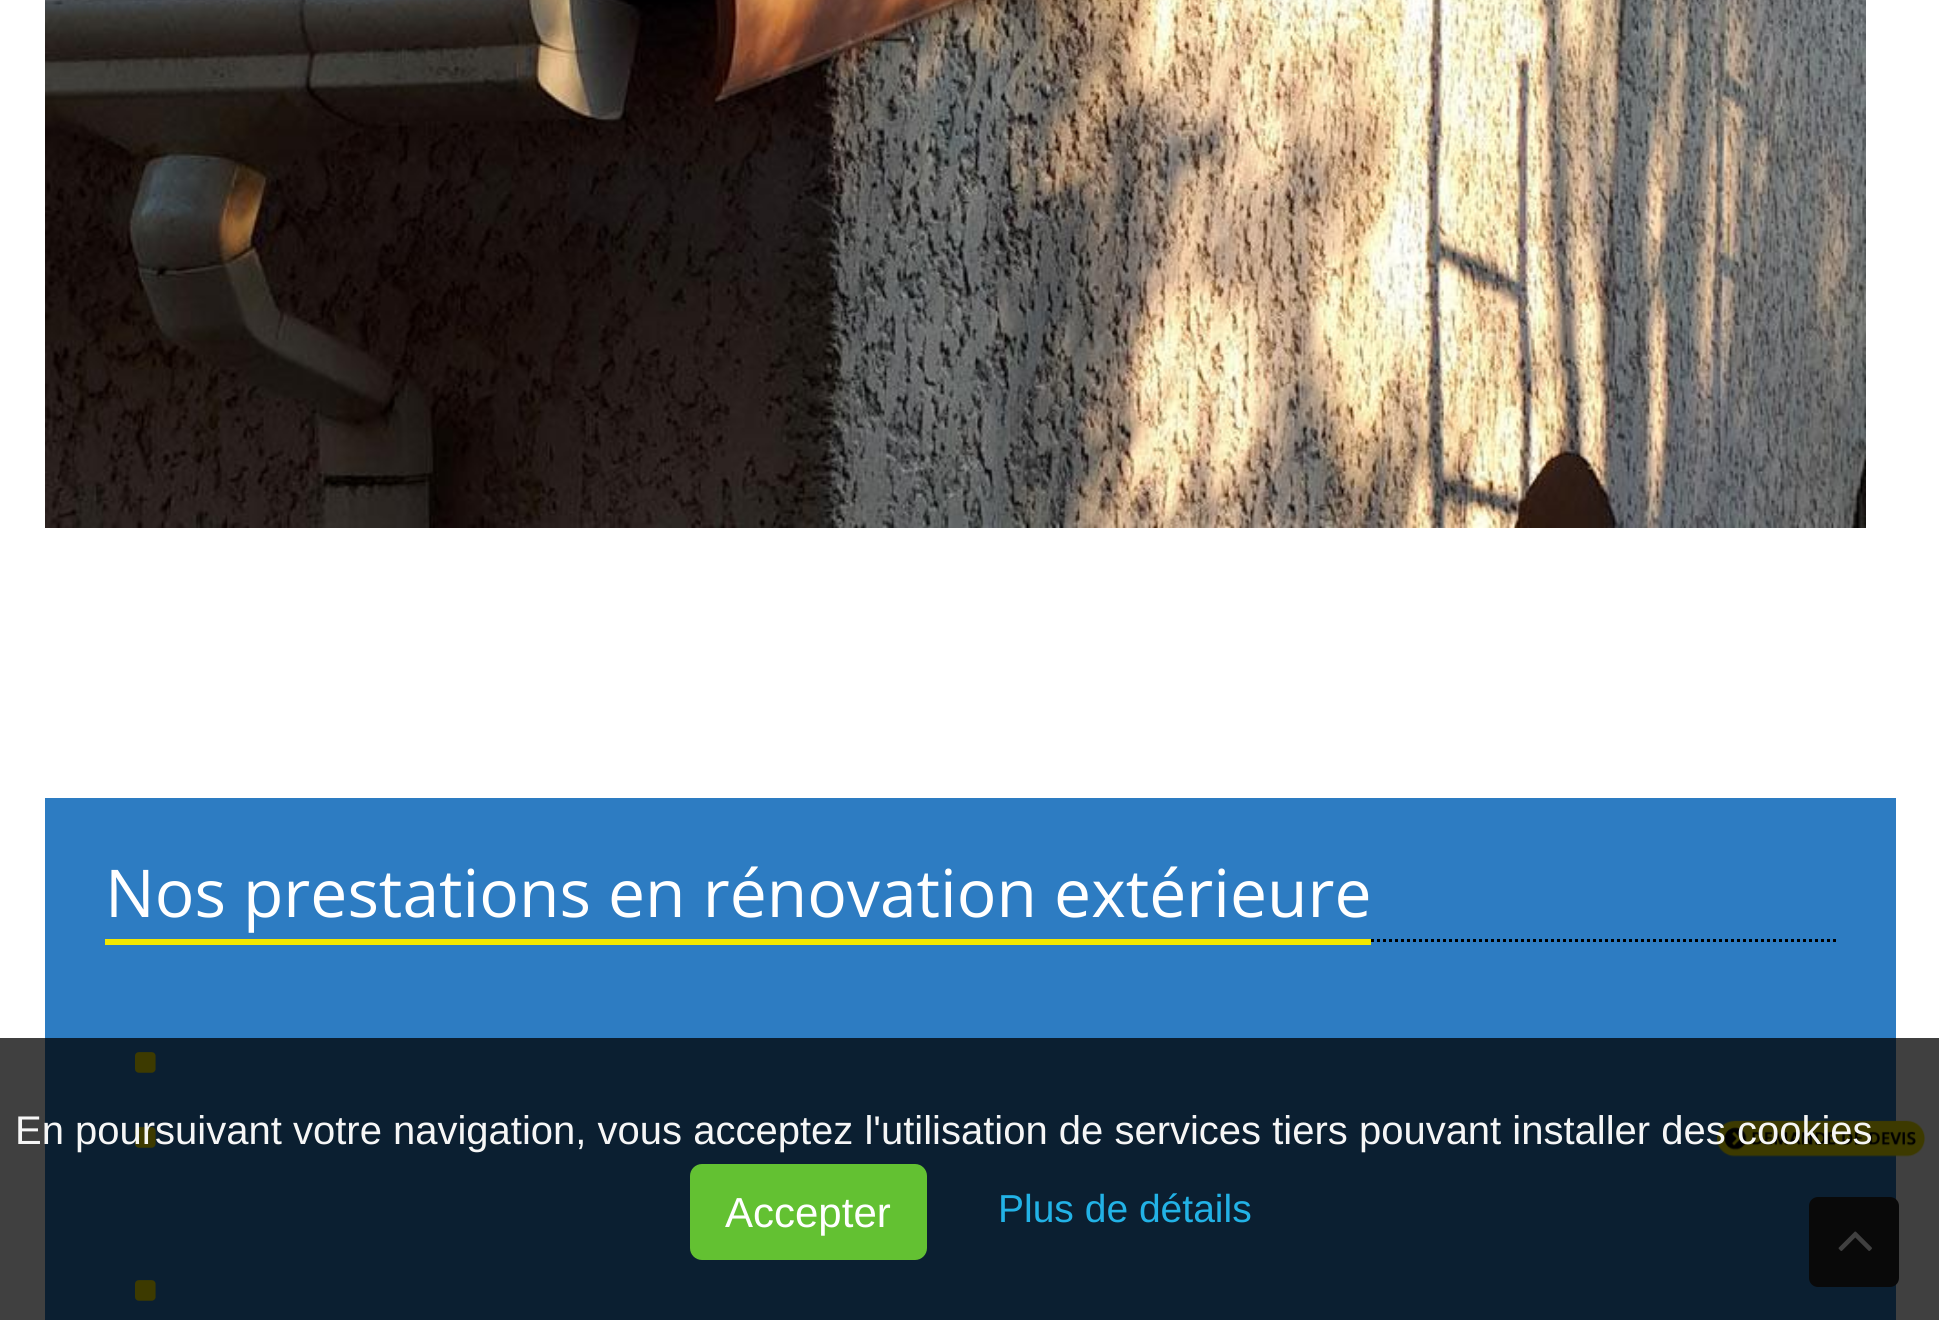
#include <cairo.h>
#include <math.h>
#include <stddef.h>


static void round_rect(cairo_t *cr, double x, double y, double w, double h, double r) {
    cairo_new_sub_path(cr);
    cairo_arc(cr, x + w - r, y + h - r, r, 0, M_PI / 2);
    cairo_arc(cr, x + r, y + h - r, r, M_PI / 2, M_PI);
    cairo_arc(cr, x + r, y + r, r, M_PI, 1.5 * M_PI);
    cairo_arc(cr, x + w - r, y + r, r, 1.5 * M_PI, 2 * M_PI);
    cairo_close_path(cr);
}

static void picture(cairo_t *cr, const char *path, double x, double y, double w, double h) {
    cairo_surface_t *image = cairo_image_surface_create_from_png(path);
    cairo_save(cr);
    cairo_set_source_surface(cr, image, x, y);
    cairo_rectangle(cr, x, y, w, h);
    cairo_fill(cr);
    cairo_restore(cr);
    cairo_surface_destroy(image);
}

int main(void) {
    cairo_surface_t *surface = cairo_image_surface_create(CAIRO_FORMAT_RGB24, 1939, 1320);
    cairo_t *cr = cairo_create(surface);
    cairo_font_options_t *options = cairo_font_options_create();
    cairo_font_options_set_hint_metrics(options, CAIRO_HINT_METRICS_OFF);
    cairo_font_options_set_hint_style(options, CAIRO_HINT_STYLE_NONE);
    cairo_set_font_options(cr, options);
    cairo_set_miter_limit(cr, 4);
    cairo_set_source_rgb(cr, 1, 1, 1);
    cairo_paint(cr);
    picture(cr, "img1.png", 45, 0, 1821, 528);
    cairo_set_source_rgb(cr, 0.176, 0.486, 0.761);
    cairo_rectangle(cr, 45, 798, 1851, 522);
    cairo_fill(cr);
    cairo_new_path(cr);
    cairo_move_to(cr, 105, 940.5);
    cairo_line_to(cr, 1836, 940.5);
    cairo_set_source_rgb(cr, 0, 0, 0);
    cairo_set_line_width(cr, 3);
    cairo_set_dash(cr, (double[]){3, 3}, 2, 0);
    cairo_stroke(cr);
    cairo_set_source_rgb(cr, 0.953, 0.91, 0);
    cairo_rectangle(cr, 105, 939, 1266, 6);
    cairo_fill(cr);
    cairo_select_font_face(cr, "Open Sans", CAIRO_FONT_SLANT_NORMAL, CAIRO_FONT_WEIGHT_NORMAL);
    cairo_set_font_size(cr, 66);
    cairo_set_source_rgb(cr, 1, 1, 1);
    cairo_move_to(cr, 105, 917);
    cairo_show_text(cr, "Nos prestations en rénovation extérieure");
    picture(cr, "img2.png", 135, 1052, 21, 21);
    picture(cr, "img2.png", 135, 1127, 21, 21);
    picture(cr, "img2.png", 135, 1280, 21, 21);
    picture(cr, "img3.png", 1717, 1120, 209, 37);
    cairo_set_source_rgb(cr, 0.133, 0.133, 0.133);
    round_rect(cr, 1809, 1197, 90, 90, 9);
    cairo_fill(cr);
    picture(cr, "img4.png", 1838, 1231, 34, 20);
    cairo_set_source_rgba(cr, 0, 0, 0, 0.75);
    cairo_rectangle(cr, 0, 1038, 1939, 282);
    cairo_fill(cr);
    cairo_select_font_face(cr, "Liberation Sans", CAIRO_FONT_SLANT_NORMAL, CAIRO_FONT_WEIGHT_NORMAL);
    cairo_set_font_size(cr, 40);
    cairo_set_source_rgb(cr, 0.961, 0.961, 0.961);
    cairo_move_to(cr, 15, 1144);
    cairo_show_text(cr, "En poursuivant votre navigation, vous acceptez l'utilisation de services tiers pouvant installer des cookies");
    cairo_set_source_rgb(cr, 0.388, 0.757, 0.196);
    round_rect(cr, 690, 1164, 237, 96, 12);
    cairo_fill(cr);
    cairo_set_font_size(cr, 42);
    cairo_set_source_rgb(cr, 1, 1, 1);
    cairo_move_to(cr, 725, 1227);
    cairo_show_text(cr, "Accepter");
    cairo_set_font_size(cr, 39);
    cairo_set_source_rgb(cr, 0.133, 0.698, 0.902);
    cairo_move_to(cr, 998, 1222);
    cairo_show_text(cr, "Plus de détails");
    cairo_surface_write_to_png(surface, "page.png");
    cairo_font_options_destroy(options);
    cairo_destroy(cr);
    cairo_surface_destroy(surface);
    return 0;
}
